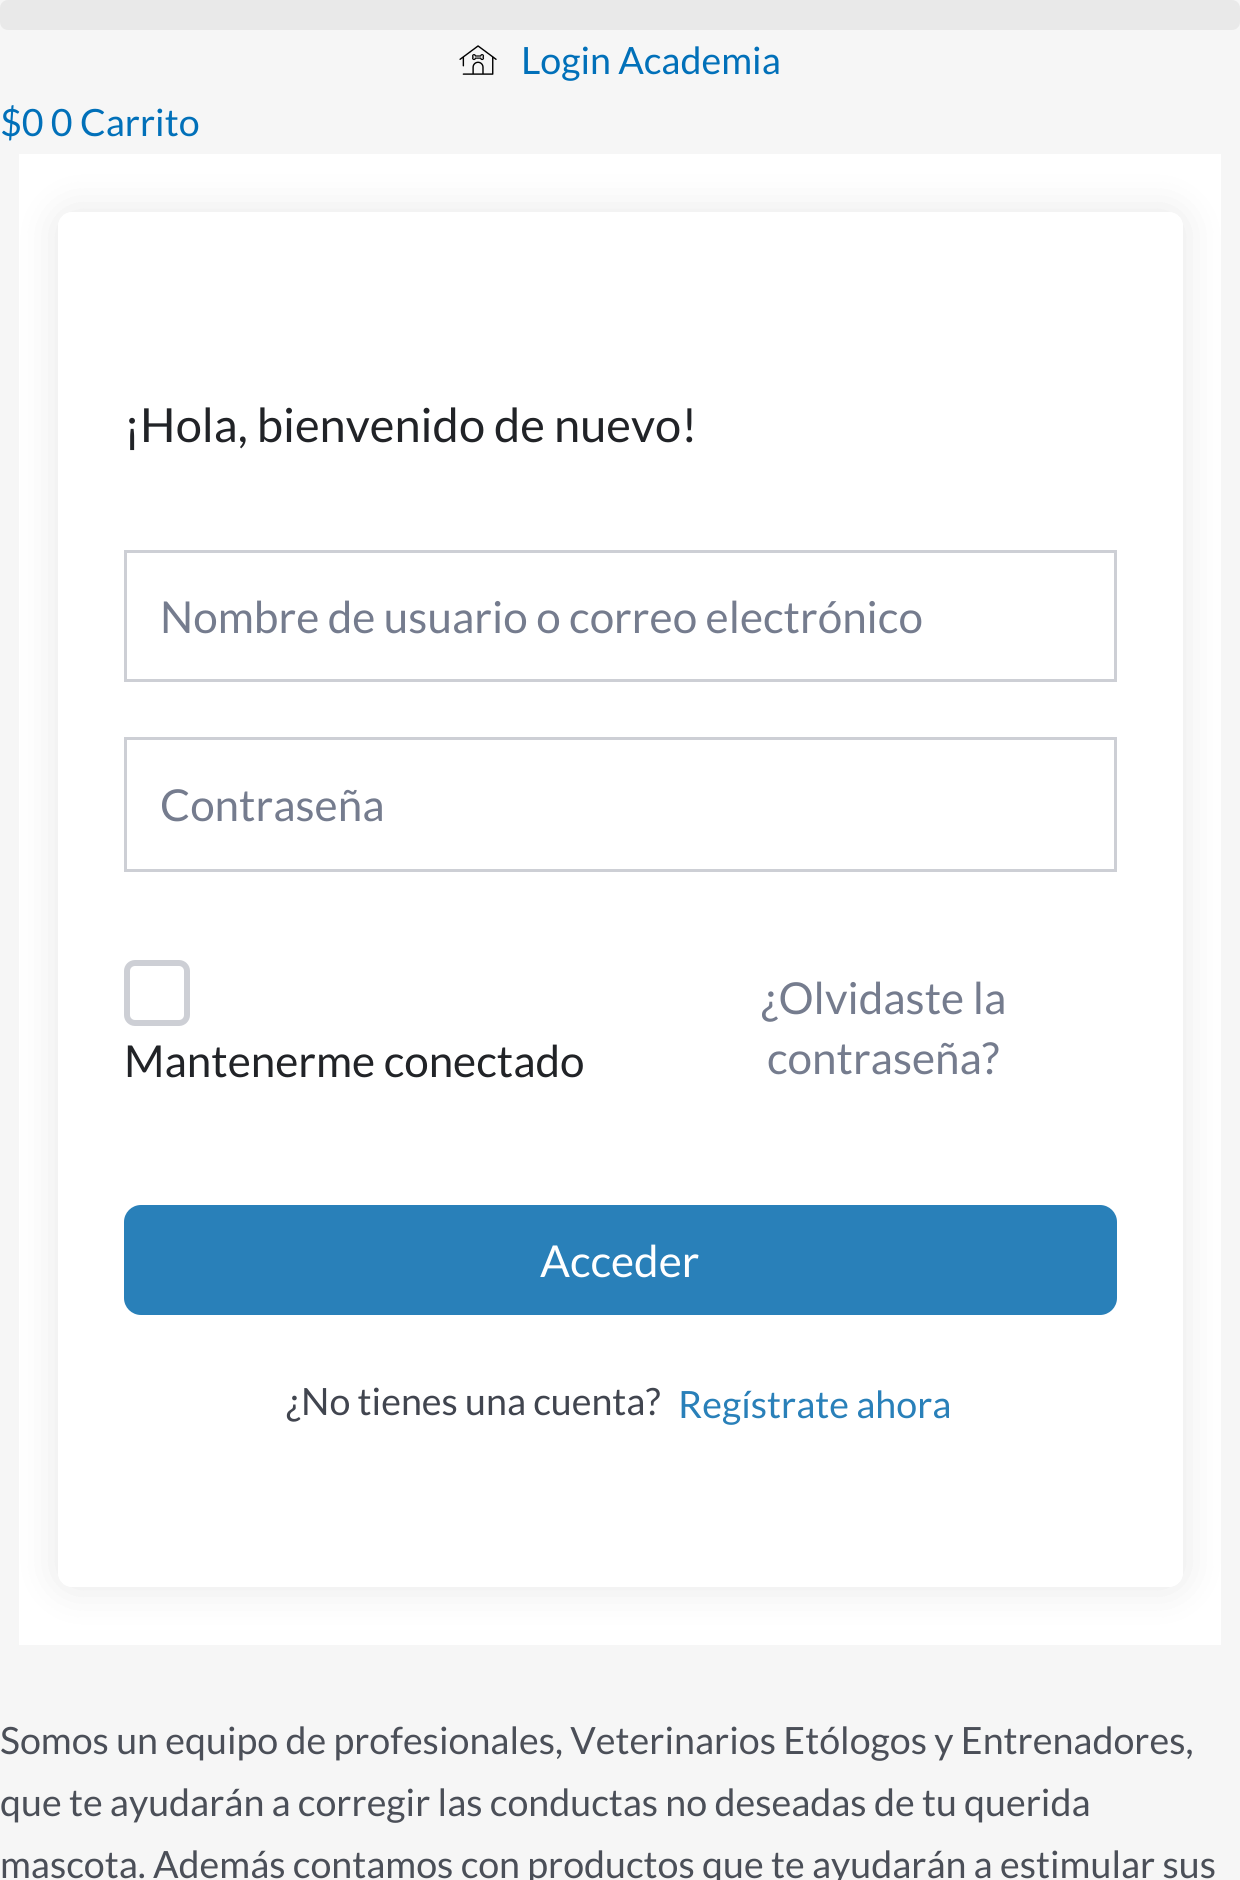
#include <cairo.h>
#include <math.h>
#include <stddef.h>


static void round_rect(cairo_t *cr, double x, double y, double w, double h, double r) {
    cairo_new_sub_path(cr);
    cairo_arc(cr, x + w - r, y + h - r, r, 0, M_PI / 2);
    cairo_arc(cr, x + r, y + h - r, r, M_PI / 2, M_PI);
    cairo_arc(cr, x + r, y + r, r, M_PI, 1.5 * M_PI);
    cairo_arc(cr, x + w - r, y + r, r, 1.5 * M_PI, 2 * M_PI);
    cairo_close_path(cr);
}

static void shadow(cairo_t *cr, double x, double y, double w, double h, double r, double blur, double alpha) {
    cairo_push_group_with_content(cr, CAIRO_CONTENT_ALPHA);
    cairo_set_operator(cr, CAIRO_OPERATOR_SOURCE);
    for (int i = 15; i >= -15 && fmin(w, h) + blur * i / 3 > 0; i -= 2) {
        double e = blur * i / 6;
        cairo_set_source_rgba(cr, 0, 0, 0, alpha * erfc((i - 1) / 8.5) / 2);
        round_rect(cr, x - e, y - e, w + 2 * e, h + 2 * e, fmax(0, fmin(r + e + blur * .6, fmin(w, h) / 2 + e)));
        cairo_fill(cr);
    }
    cairo_pattern_t *soft = cairo_pop_group(cr);
    cairo_mask(cr, soft);
    cairo_pattern_destroy(soft);
}

static void picture(cairo_t *cr, const char *path, double x, double y, double w, double h) {
    cairo_surface_t *image = cairo_image_surface_create_from_png(path);
    cairo_save(cr);
    cairo_set_source_surface(cr, image, x, y);
    cairo_rectangle(cr, x, y, w, h);
    cairo_fill(cr);
    cairo_restore(cr);
    cairo_surface_destroy(image);
}

int main(void) {
    cairo_surface_t *surface = cairo_image_surface_create(CAIRO_FORMAT_RGB24, 1240, 1880);
    cairo_t *cr = cairo_create(surface);
    cairo_font_options_t *options = cairo_font_options_create();
    cairo_font_options_set_hint_metrics(options, CAIRO_HINT_METRICS_OFF);
    cairo_font_options_set_hint_style(options, CAIRO_HINT_STYLE_NONE);
    cairo_set_font_options(cr, options);
    cairo_set_miter_limit(cr, 4);
    cairo_set_source_rgb(cr, 0.961, 0.961, 0.961);
    cairo_paint(cr);
    cairo_set_source_rgb(cr, 0.914, 0.914, 0.914);
    round_rect(cr, 0, 0, 1240, 30, 8);
    cairo_fill(cr);
    picture(cr, "img1.png", 459, 45, 38, 30);
    cairo_select_font_face(cr, "Lato", CAIRO_FONT_SLANT_NORMAL, CAIRO_FONT_WEIGHT_NORMAL);
    cairo_set_font_size(cr, 37.6);
    cairo_set_source_rgb(cr, 0.004, 0.439, 0.725);
    cairo_move_to(cr, 521, 74);
    cairo_show_text(cr, "Login Academia");
    cairo_move_to(cr, 0, 136);
    cairo_show_text(cr, "$0 0 Carrito");
    cairo_set_source_rgb(cr, 1, 1, 1);
    cairo_rectangle(cr, 19, 154, 1202, 1491);
    cairo_fill(cr);
    cairo_save(cr);
    cairo_set_fill_rule(cr, CAIRO_FILL_RULE_EVEN_ODD);
    cairo_new_path(cr);
    cairo_move_to(cr, 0, 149);
    cairo_line_to(cr, 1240, 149);
    cairo_line_to(cr, 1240, 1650);
    cairo_line_to(cr, 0, 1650);
    cairo_close_path(cr);
    cairo_move_to(cr, 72, 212);
    cairo_line_to(cr, 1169, 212);
    cairo_curve_to(cr, 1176.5, 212, 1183, 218.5, 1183, 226);
    cairo_line_to(cr, 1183, 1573);
    cairo_curve_to(cr, 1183, 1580.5, 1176.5, 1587, 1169, 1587);
    cairo_line_to(cr, 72, 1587);
    cairo_curve_to(cr, 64.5, 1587, 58, 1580.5, 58, 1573);
    cairo_line_to(cr, 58, 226);
    cairo_curve_to(cr, 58, 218.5, 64.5, 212, 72, 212);
    cairo_close_path(cr);
    cairo_clip(cr);
    cairo_set_source_rgb(cr, 0, 0, 0);
    shadow(cr, 58, 212, 1125, 1375, 14, 20.5, 0.1);
    cairo_restore(cr);
    cairo_set_font_size(cr, 47);
    cairo_set_source_rgb(cr, 0.129, 0.137, 0.153);
    cairo_move_to(cr, 124, 442);
    cairo_show_text(cr, "¡Hola, bienvenido de nuevo!");
    cairo_rectangle(cr, 125.5, 551.5, 990, 129);
    cairo_set_source_rgb(cr, 0.804, 0.812, 0.835);
    cairo_set_line_width(cr, 3);
    cairo_stroke(cr);
    cairo_set_font_size(cr, 44);
    cairo_set_source_rgb(cr, 0.459, 0.486, 0.557);
    cairo_move_to(cr, 160, 633);
    cairo_show_text(cr, "Nombre de usuario o correo electrónico");
    cairo_rectangle(cr, 125.5, 738.5, 990, 132);
    cairo_set_source_rgb(cr, 0.804, 0.812, 0.835);
    cairo_stroke(cr);
    cairo_set_source_rgb(cr, 0.459, 0.486, 0.557);
    cairo_move_to(cr, 160, 821);
    cairo_show_text(cr, "Contraseña");
    round_rect(cr, 127, 963, 60, 60, 8);
    cairo_set_source_rgb(cr, 0.804, 0.812, 0.835);
    cairo_set_line_width(cr, 6);
    cairo_stroke(cr);
    cairo_set_source_rgb(cr, 0.129, 0.137, 0.153);
    cairo_move_to(cr, 124, 1077);
    cairo_show_text(cr, "Mantenerme conectado");
    cairo_set_source_rgb(cr, 0.459, 0.486, 0.557);
    cairo_move_to(cr, 761, 1014);
    cairo_show_text(cr, "¿Olvidaste la");
    cairo_move_to(cr, 767, 1074);
    cairo_show_text(cr, "contraseña?");
    cairo_set_source_rgb(cr, 0.161, 0.502, 0.725);
    round_rect(cr, 125.5, 1206.5, 990, 107, 15.5);
    cairo_fill_preserve(cr);
    cairo_set_line_width(cr, 3);
    cairo_stroke(cr);
    cairo_set_source_rgb(cr, 1, 1, 1);
    cairo_move_to(cr, 540, 1277);
    cairo_show_text(cr, "Acceder");
    cairo_set_font_size(cr, 37.6);
    cairo_set_source_rgb(cr, 0.255, 0.271, 0.31);
    cairo_move_to(cr, 286, 1415);
    cairo_show_text(cr, "¿No tienes una cuenta?");
    cairo_set_source_rgb(cr, 0.161, 0.502, 0.725);
    cairo_move_to(cr, 678, 1418);
    cairo_show_text(cr, "Regístrate ahora");
    cairo_set_source_rgb(cr, 0.294, 0.31, 0.345);
    cairo_move_to(cr, 0, 1754);
    cairo_show_text(cr, "Somos un equipo de profesionales, Veterinarios Etólogos y Entrenadores,");
    cairo_move_to(cr, 0, 1816);
    cairo_show_text(cr, "que te ayudarán a corregir las conductas no deseadas de tu querida");
    cairo_move_to(cr, 0, 1878);
    cairo_show_text(cr, "mascota. Además contamos con productos que te ayudarán a estimular sus");
    cairo_surface_write_to_png(surface, "page.png");
    cairo_font_options_destroy(options);
    cairo_destroy(cr);
    cairo_surface_destroy(surface);
    return 0;
}
